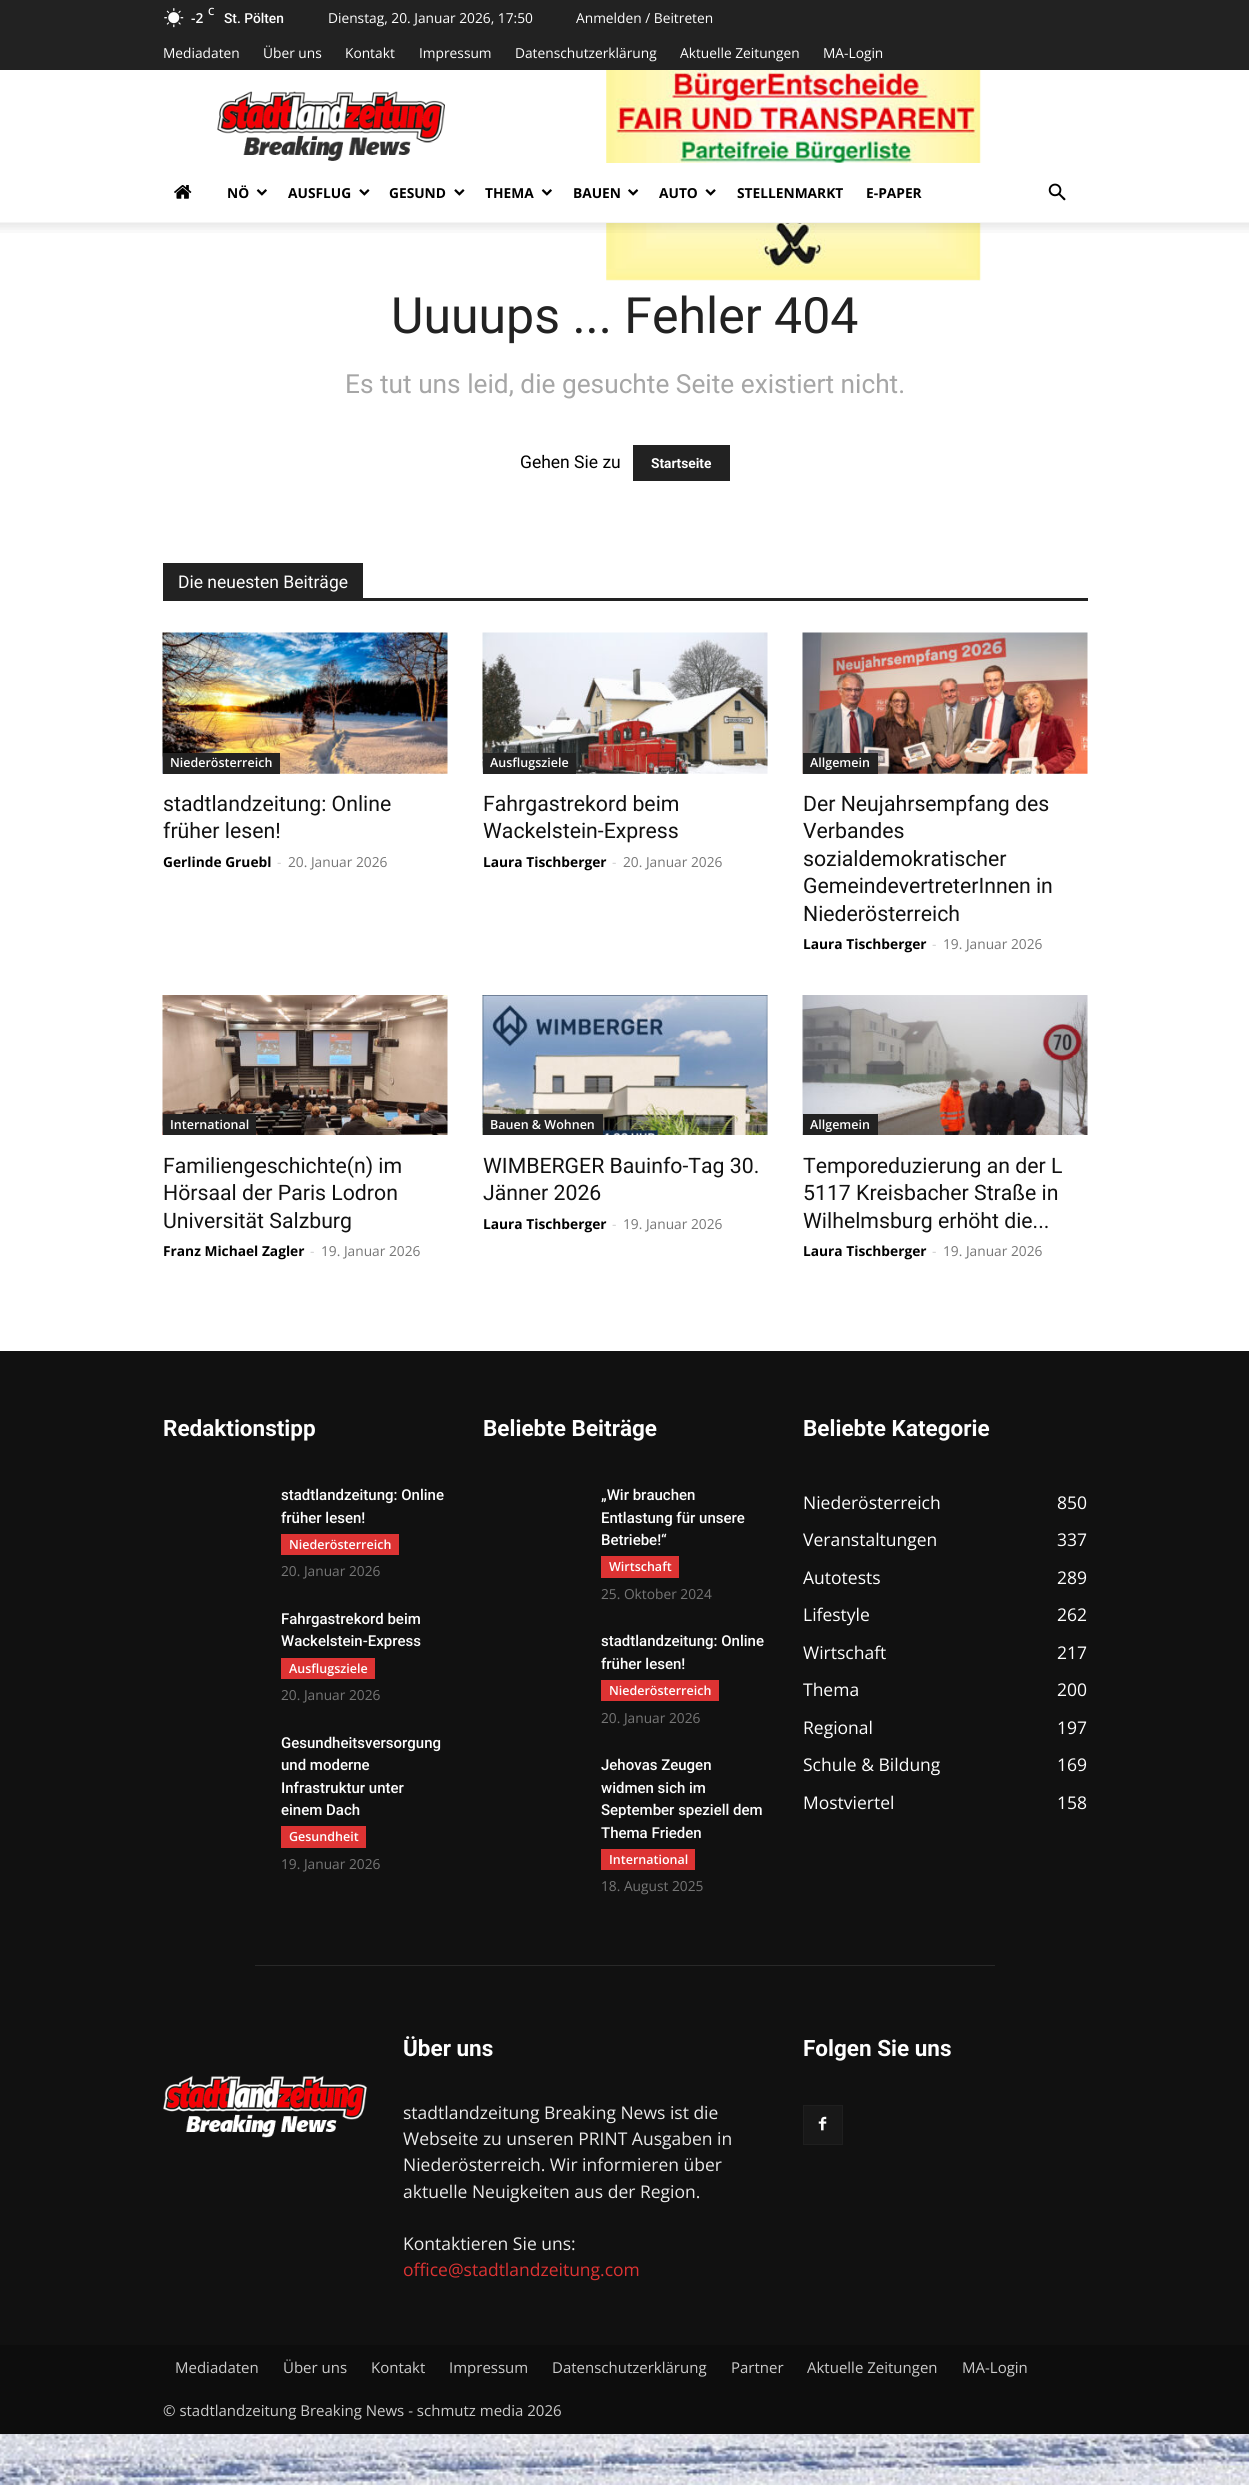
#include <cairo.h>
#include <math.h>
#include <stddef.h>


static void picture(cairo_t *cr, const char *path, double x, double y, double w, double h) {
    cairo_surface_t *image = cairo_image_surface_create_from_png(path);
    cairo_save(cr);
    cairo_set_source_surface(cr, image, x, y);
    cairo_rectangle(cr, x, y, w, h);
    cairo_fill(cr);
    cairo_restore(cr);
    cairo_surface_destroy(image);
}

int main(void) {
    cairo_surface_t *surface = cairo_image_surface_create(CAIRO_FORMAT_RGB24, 1249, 2485);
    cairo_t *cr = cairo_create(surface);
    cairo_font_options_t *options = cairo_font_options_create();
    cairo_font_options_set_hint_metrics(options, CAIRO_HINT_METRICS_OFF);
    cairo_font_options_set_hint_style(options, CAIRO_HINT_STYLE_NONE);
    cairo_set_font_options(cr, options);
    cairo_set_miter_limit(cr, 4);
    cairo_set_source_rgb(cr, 1, 1, 1);
    cairo_paint(cr);
    cairo_set_source_rgb(cr, 0.133, 0.133, 0.133);
    cairo_rectangle(cr, 0, 0, 1249, 70);
    cairo_fill(cr);
    picture(cr, "img1.png", 164, 8, 20, 20);
    cairo_select_font_face(cr, "Open Sans SemiBold", CAIRO_FONT_SLANT_NORMAL, CAIRO_FONT_WEIGHT_NORMAL);
    cairo_set_font_size(cr, 10);
    cairo_set_source_rgb(cr, 1, 1, 1);
    cairo_move_to(cr, 208, 15);
    cairo_show_text(cr, "C");
    cairo_set_font_size(cr, 13.75);
    cairo_move_to(cr, 191, 23);
    cairo_show_text(cr, "-2");
    cairo_select_font_face(cr, "Roboto Medium", CAIRO_FONT_SLANT_NORMAL, CAIRO_FONT_WEIGHT_NORMAL);
    cairo_move_to(cr, 224, 23);
    cairo_show_text(cr, "St. Pölten");
    cairo_select_font_face(cr, "Open Sans", CAIRO_FONT_SLANT_NORMAL, CAIRO_FONT_WEIGHT_NORMAL);
    cairo_move_to(cr, 328, 23);
    cairo_show_text(cr, "Dienstag, 20. Januar 2026, 17:50");
    cairo_move_to(cr, 576, 23);
    cairo_show_text(cr, "Anmelden / Beitreten");
    cairo_move_to(cr, 163, 58);
    cairo_show_text(cr, "Mediadaten");
    cairo_move_to(cr, 263, 58);
    cairo_show_text(cr, "Über uns");
    cairo_move_to(cr, 345, 58);
    cairo_show_text(cr, "Kontakt");
    cairo_move_to(cr, 419, 58);
    cairo_show_text(cr, "Impressum");
    cairo_move_to(cr, 515, 58);
    cairo_show_text(cr, "Datenschutzerklärung");
    cairo_move_to(cr, 680, 58);
    cairo_show_text(cr, "Aktuelle Zeitungen");
    cairo_move_to(cr, 823, 58);
    cairo_show_text(cr, "MA-Login");
    picture(cr, "img2.png", 217, 91, 228, 70);
    picture(cr, "img3.png", 606, 70, 376, 211);
    cairo_rectangle(cr, 606, 163, 376, 60);
    cairo_fill(cr);
    picture(cr, "img4.png", 174, 185, 18, 14);
    cairo_select_font_face(cr, "Open Sans", CAIRO_FONT_SLANT_NORMAL, CAIRO_FONT_WEIGHT_BOLD);
    cairo_set_source_rgb(cr, 0, 0, 0);
    cairo_move_to(cr, 227, 198);
    cairo_show_text(cr, "NÖ");
    picture(cr, "img5.png", 256, 189, 11, 7);
    cairo_move_to(cr, 288, 198);
    cairo_show_text(cr, "AUSFLUG");
    picture(cr, "img6.png", 359, 189, 11, 7);
    cairo_move_to(cr, 389, 198);
    cairo_show_text(cr, "GESUND");
    picture(cr, "img6.png", 454, 189, 11, 7);
    cairo_move_to(cr, 485, 198);
    cairo_show_text(cr, "THEMA");
    picture(cr, "img5.png", 541, 189, 11, 7);
    cairo_move_to(cr, 573, 198);
    cairo_show_text(cr, "BAUEN");
    picture(cr, "img7.png", 628, 189, 11, 7);
    cairo_move_to(cr, 659, 198);
    cairo_show_text(cr, "AUTO");
    picture(cr, "img8.png", 705, 189, 11, 7);
    cairo_move_to(cr, 737, 198);
    cairo_show_text(cr, "STELLENMARKT");
    cairo_move_to(cr, 866, 198);
    cairo_show_text(cr, "E-PAPER");
    picture(cr, "img9.png", 1048, 183, 18, 18);
    picture(cr, "img10.png", 0, 222, 1249, 11);
    cairo_select_font_face(cr, "Roboto", CAIRO_FONT_SLANT_NORMAL, CAIRO_FONT_WEIGHT_NORMAL);
    cairo_set_font_size(cr, 50);
    cairo_set_source_rgb(cr, 0.133, 0.133, 0.133);
    cairo_move_to(cr, 391, 333);
    cairo_show_text(cr, "Uuuups ... Fehler 404");
    cairo_set_font_size(cr, 26.25);
    cairo_set_source_rgb(cr, 0.651, 0.651, 0.651);
    cairo_move_to(cr, 345, 393);
    cairo_show_text(cr, "Es tut uns leid, die gesuchte Seite existiert nicht.");
    cairo_set_font_size(cr, 17.5);
    cairo_set_source_rgb(cr, 0, 0, 0);
    cairo_move_to(cr, 520, 468);
    cairo_show_text(cr, "Gehen Sie zu");
    cairo_set_source_rgb(cr, 0.133, 0.133, 0.133);
    cairo_rectangle(cr, 633, 445, 97, 36);
    cairo_fill(cr);
    cairo_select_font_face(cr, "Roboto", CAIRO_FONT_SLANT_NORMAL, CAIRO_FONT_WEIGHT_BOLD);
    cairo_set_font_size(cr, 13.75);
    cairo_set_source_rgb(cr, 1, 1, 1);
    cairo_move_to(cr, 651, 468);
    cairo_show_text(cr, "Startseite");
    cairo_set_source_rgb(cr, 0.133, 0.133, 0.133);
    cairo_rectangle(cr, 163, 598, 925, 3);
    cairo_fill(cr);
    cairo_rectangle(cr, 163, 563, 200, 35);
    cairo_fill(cr);
    cairo_select_font_face(cr, "Roboto", CAIRO_FONT_SLANT_NORMAL, CAIRO_FONT_WEIGHT_NORMAL);
    cairo_set_font_size(cr, 17.5);
    cairo_set_source_rgb(cr, 1, 1, 1);
    cairo_move_to(cr, 178, 588);
    cairo_show_text(cr, "Die neuesten Beiträge");
    picture(cr, "img11.png", 162, 632, 286, 142);
    cairo_set_source_rgb(cr, 0.133, 0.133, 0.133);
    cairo_rectangle(cr, 163, 753, 117, 21);
    cairo_fill(cr);
    cairo_select_font_face(cr, "Open Sans SemiBold", CAIRO_FONT_SLANT_NORMAL, CAIRO_FONT_WEIGHT_NORMAL);
    cairo_set_font_size(cr, 12.5);
    cairo_set_source_rgb(cr, 1, 1, 1);
    cairo_move_to(cr, 170, 767);
    cairo_show_text(cr, "Niederösterreich");
    cairo_select_font_face(cr, "Roboto", CAIRO_FONT_SLANT_NORMAL, CAIRO_FONT_WEIGHT_NORMAL);
    cairo_set_font_size(cr, 21.25);
    cairo_set_source_rgb(cr, 0.067, 0.067, 0.067);
    cairo_move_to(cr, 163, 811);
    cairo_show_text(cr, "stadtlandzeitung: Online");
    cairo_move_to(cr, 163, 838);
    cairo_show_text(cr, "früher lesen!");
    cairo_select_font_face(cr, "Open Sans", CAIRO_FONT_SLANT_NORMAL, CAIRO_FONT_WEIGHT_BOLD);
    cairo_set_font_size(cr, 13.75);
    cairo_set_source_rgb(cr, 0, 0, 0);
    cairo_move_to(cr, 163, 867);
    cairo_show_text(cr, "Gerlinde Gruebl");
    cairo_select_font_face(cr, "Open Sans", CAIRO_FONT_SLANT_NORMAL, CAIRO_FONT_WEIGHT_NORMAL);
    cairo_set_source_rgb(cr, 0.8, 0.8, 0.8);
    cairo_move_to(cr, 277, 867);
    cairo_show_text(cr, "-");
    cairo_set_source_rgb(cr, 0.463, 0.463, 0.463);
    cairo_move_to(cr, 288, 867);
    cairo_show_text(cr, "20. Januar 2026");
    picture(cr, "img12.png", 482, 632, 286, 142);
    cairo_set_source_rgb(cr, 0.133, 0.133, 0.133);
    cairo_rectangle(cr, 483, 753, 93, 21);
    cairo_fill(cr);
    cairo_select_font_face(cr, "Open Sans SemiBold", CAIRO_FONT_SLANT_NORMAL, CAIRO_FONT_WEIGHT_NORMAL);
    cairo_set_font_size(cr, 12.5);
    cairo_set_source_rgb(cr, 1, 1, 1);
    cairo_move_to(cr, 490, 767);
    cairo_show_text(cr, "Ausflugsziele");
    cairo_select_font_face(cr, "Roboto", CAIRO_FONT_SLANT_NORMAL, CAIRO_FONT_WEIGHT_NORMAL);
    cairo_set_font_size(cr, 21.25);
    cairo_set_source_rgb(cr, 0.067, 0.067, 0.067);
    cairo_move_to(cr, 483, 811);
    cairo_show_text(cr, "Fahrgastrekord beim");
    cairo_move_to(cr, 483, 838);
    cairo_show_text(cr, "Wackelstein-Express");
    cairo_select_font_face(cr, "Open Sans", CAIRO_FONT_SLANT_NORMAL, CAIRO_FONT_WEIGHT_BOLD);
    cairo_set_font_size(cr, 13.75);
    cairo_set_source_rgb(cr, 0, 0, 0);
    cairo_move_to(cr, 483, 867);
    cairo_show_text(cr, "Laura Tischberger");
    cairo_select_font_face(cr, "Open Sans", CAIRO_FONT_SLANT_NORMAL, CAIRO_FONT_WEIGHT_NORMAL);
    cairo_set_source_rgb(cr, 0.8, 0.8, 0.8);
    cairo_move_to(cr, 612, 867);
    cairo_show_text(cr, "-");
    cairo_set_source_rgb(cr, 0.463, 0.463, 0.463);
    cairo_move_to(cr, 623, 867);
    cairo_show_text(cr, "20. Januar 2026");
    picture(cr, "img13.png", 802, 632, 286, 142);
    cairo_set_source_rgb(cr, 0.133, 0.133, 0.133);
    cairo_rectangle(cr, 803, 753, 75, 21);
    cairo_fill(cr);
    cairo_select_font_face(cr, "Open Sans SemiBold", CAIRO_FONT_SLANT_NORMAL, CAIRO_FONT_WEIGHT_NORMAL);
    cairo_set_font_size(cr, 12.5);
    cairo_set_source_rgb(cr, 1, 1, 1);
    cairo_move_to(cr, 810, 767);
    cairo_show_text(cr, "Allgemein");
    cairo_select_font_face(cr, "Roboto", CAIRO_FONT_SLANT_NORMAL, CAIRO_FONT_WEIGHT_NORMAL);
    cairo_set_font_size(cr, 21.25);
    cairo_set_source_rgb(cr, 0.067, 0.067, 0.067);
    cairo_move_to(cr, 803, 811);
    cairo_show_text(cr, "Der Neujahrsempfang des");
    cairo_move_to(cr, 803, 838);
    cairo_show_text(cr, "Verbandes");
    cairo_move_to(cr, 803, 866);
    cairo_show_text(cr, "sozialdemokratischer");
    cairo_move_to(cr, 803, 893);
    cairo_show_text(cr, "GemeindevertreterInnen in");
    cairo_move_to(cr, 803, 921);
    cairo_show_text(cr, "Niederösterreich");
    cairo_select_font_face(cr, "Open Sans", CAIRO_FONT_SLANT_NORMAL, CAIRO_FONT_WEIGHT_BOLD);
    cairo_set_font_size(cr, 13.75);
    cairo_set_source_rgb(cr, 0, 0, 0);
    cairo_move_to(cr, 803, 949);
    cairo_show_text(cr, "Laura Tischberger");
    cairo_select_font_face(cr, "Open Sans", CAIRO_FONT_SLANT_NORMAL, CAIRO_FONT_WEIGHT_NORMAL);
    cairo_set_source_rgb(cr, 0.8, 0.8, 0.8);
    cairo_move_to(cr, 932, 949);
    cairo_show_text(cr, "-");
    cairo_set_source_rgb(cr, 0.463, 0.463, 0.463);
    cairo_move_to(cr, 943, 949);
    cairo_show_text(cr, "19. Januar 2026");
    picture(cr, "img14.png", 162, 995, 286, 140);
    cairo_set_source_rgb(cr, 0.133, 0.133, 0.133);
    cairo_rectangle(cr, 163, 1114, 93, 21);
    cairo_fill(cr);
    cairo_select_font_face(cr, "Open Sans SemiBold", CAIRO_FONT_SLANT_NORMAL, CAIRO_FONT_WEIGHT_NORMAL);
    cairo_set_font_size(cr, 12.5);
    cairo_set_source_rgb(cr, 1, 1, 1);
    cairo_move_to(cr, 170, 1129);
    cairo_show_text(cr, "International");
    cairo_select_font_face(cr, "Roboto", CAIRO_FONT_SLANT_NORMAL, CAIRO_FONT_WEIGHT_NORMAL);
    cairo_set_font_size(cr, 21.25);
    cairo_set_source_rgb(cr, 0.067, 0.067, 0.067);
    cairo_move_to(cr, 163, 1173);
    cairo_show_text(cr, "Familiengeschichte(n) im");
    cairo_move_to(cr, 163, 1200);
    cairo_show_text(cr, "Hörsaal der Paris Lodron");
    cairo_move_to(cr, 163, 1228);
    cairo_show_text(cr, "Universität Salzburg");
    cairo_select_font_face(cr, "Open Sans", CAIRO_FONT_SLANT_NORMAL, CAIRO_FONT_WEIGHT_BOLD);
    cairo_set_font_size(cr, 13.75);
    cairo_set_source_rgb(cr, 0, 0, 0);
    cairo_move_to(cr, 163, 1256);
    cairo_show_text(cr, "Franz Michael Zagler");
    cairo_select_font_face(cr, "Open Sans", CAIRO_FONT_SLANT_NORMAL, CAIRO_FONT_WEIGHT_NORMAL);
    cairo_set_source_rgb(cr, 0.8, 0.8, 0.8);
    cairo_move_to(cr, 310, 1256);
    cairo_show_text(cr, "-");
    cairo_set_source_rgb(cr, 0.463, 0.463, 0.463);
    cairo_move_to(cr, 321, 1256);
    cairo_show_text(cr, "19. Januar 2026");
    picture(cr, "img15.png", 482, 995, 286, 140);
    cairo_set_source_rgb(cr, 0.133, 0.133, 0.133);
    cairo_rectangle(cr, 483, 1114, 120, 21);
    cairo_fill(cr);
    cairo_select_font_face(cr, "Open Sans SemiBold", CAIRO_FONT_SLANT_NORMAL, CAIRO_FONT_WEIGHT_NORMAL);
    cairo_set_font_size(cr, 12.5);
    cairo_set_source_rgb(cr, 1, 1, 1);
    cairo_move_to(cr, 490, 1129);
    cairo_show_text(cr, "Bauen & Wohnen");
    cairo_select_font_face(cr, "Roboto", CAIRO_FONT_SLANT_NORMAL, CAIRO_FONT_WEIGHT_NORMAL);
    cairo_set_font_size(cr, 21.25);
    cairo_set_source_rgb(cr, 0.067, 0.067, 0.067);
    cairo_move_to(cr, 483, 1173);
    cairo_show_text(cr, "WIMBERGER Bauinfo-Tag 30.");
    cairo_move_to(cr, 483, 1200);
    cairo_show_text(cr, "Jänner 2026");
    cairo_select_font_face(cr, "Open Sans", CAIRO_FONT_SLANT_NORMAL, CAIRO_FONT_WEIGHT_BOLD);
    cairo_set_font_size(cr, 13.75);
    cairo_set_source_rgb(cr, 0, 0, 0);
    cairo_move_to(cr, 483, 1229);
    cairo_show_text(cr, "Laura Tischberger");
    cairo_select_font_face(cr, "Open Sans", CAIRO_FONT_SLANT_NORMAL, CAIRO_FONT_WEIGHT_NORMAL);
    cairo_set_source_rgb(cr, 0.8, 0.8, 0.8);
    cairo_move_to(cr, 612, 1229);
    cairo_show_text(cr, "-");
    cairo_set_source_rgb(cr, 0.463, 0.463, 0.463);
    cairo_move_to(cr, 623, 1229);
    cairo_show_text(cr, "19. Januar 2026");
    picture(cr, "img16.png", 802, 995, 286, 140);
    cairo_set_source_rgb(cr, 0.133, 0.133, 0.133);
    cairo_rectangle(cr, 803, 1114, 75, 21);
    cairo_fill(cr);
    cairo_select_font_face(cr, "Open Sans SemiBold", CAIRO_FONT_SLANT_NORMAL, CAIRO_FONT_WEIGHT_NORMAL);
    cairo_set_font_size(cr, 12.5);
    cairo_set_source_rgb(cr, 1, 1, 1);
    cairo_move_to(cr, 810, 1129);
    cairo_show_text(cr, "Allgemein");
    cairo_select_font_face(cr, "Roboto", CAIRO_FONT_SLANT_NORMAL, CAIRO_FONT_WEIGHT_NORMAL);
    cairo_set_font_size(cr, 21.25);
    cairo_set_source_rgb(cr, 0.067, 0.067, 0.067);
    cairo_move_to(cr, 803, 1173);
    cairo_show_text(cr, "Temporeduzierung an der L");
    cairo_move_to(cr, 803, 1200);
    cairo_show_text(cr, "5117 Kreisbacher Straße in");
    cairo_move_to(cr, 803, 1228);
    cairo_show_text(cr, "Wilhelmsburg erhöht die...");
    cairo_select_font_face(cr, "Open Sans", CAIRO_FONT_SLANT_NORMAL, CAIRO_FONT_WEIGHT_BOLD);
    cairo_set_font_size(cr, 13.75);
    cairo_set_source_rgb(cr, 0, 0, 0);
    cairo_move_to(cr, 803, 1256);
    cairo_show_text(cr, "Laura Tischberger");
    cairo_select_font_face(cr, "Open Sans", CAIRO_FONT_SLANT_NORMAL, CAIRO_FONT_WEIGHT_NORMAL);
    cairo_set_source_rgb(cr, 0.8, 0.8, 0.8);
    cairo_move_to(cr, 932, 1256);
    cairo_show_text(cr, "-");
    cairo_set_source_rgb(cr, 0.463, 0.463, 0.463);
    cairo_move_to(cr, 943, 1256);
    cairo_show_text(cr, "19. Januar 2026");
    cairo_set_source_rgb(cr, 0.067, 0.067, 0.067);
    cairo_rectangle(cr, 0, 1351, 1249, 994);
    cairo_fill(cr);
    cairo_select_font_face(cr, "Roboto", CAIRO_FONT_SLANT_NORMAL, CAIRO_FONT_WEIGHT_BOLD);
    cairo_set_font_size(cr, 22.5);
    cairo_set_source_rgb(cr, 1, 1, 1);
    cairo_move_to(cr, 163, 1436);
    cairo_show_text(cr, "Redaktionstipp");
    cairo_select_font_face(cr, "Roboto Medium", CAIRO_FONT_SLANT_NORMAL, CAIRO_FONT_WEIGHT_NORMAL);
    cairo_set_font_size(cr, 15);
    cairo_move_to(cr, 281, 1500);
    cairo_show_text(cr, "stadtlandzeitung: Online");
    cairo_move_to(cr, 281, 1523);
    cairo_show_text(cr, "früher lesen!");
    cairo_set_source_rgb(cr, 0.867, 0.2, 0.2);
    cairo_rectangle(cr, 281, 1534, 118, 21);
    cairo_fill(cr);
    cairo_select_font_face(cr, "Open Sans SemiBold", CAIRO_FONT_SLANT_NORMAL, CAIRO_FONT_WEIGHT_NORMAL);
    cairo_set_font_size(cr, 12.5);
    cairo_set_source_rgb(cr, 1, 1, 1);
    cairo_move_to(cr, 289, 1549);
    cairo_show_text(cr, "Niederösterreich");
    cairo_select_font_face(cr, "Open Sans", CAIRO_FONT_SLANT_NORMAL, CAIRO_FONT_WEIGHT_NORMAL);
    cairo_set_font_size(cr, 13.75);
    cairo_set_source_rgb(cr, 0.463, 0.463, 0.463);
    cairo_move_to(cr, 281, 1576);
    cairo_show_text(cr, "20. Januar 2026");
    cairo_select_font_face(cr, "Roboto Medium", CAIRO_FONT_SLANT_NORMAL, CAIRO_FONT_WEIGHT_NORMAL);
    cairo_set_font_size(cr, 15);
    cairo_set_source_rgb(cr, 1, 1, 1);
    cairo_move_to(cr, 281, 1624);
    cairo_show_text(cr, "Fahrgastrekord beim");
    cairo_move_to(cr, 281, 1646);
    cairo_show_text(cr, "Wackelstein-Express");
    cairo_set_source_rgb(cr, 0.867, 0.2, 0.2);
    cairo_rectangle(cr, 281, 1658, 94, 21);
    cairo_fill(cr);
    cairo_select_font_face(cr, "Open Sans SemiBold", CAIRO_FONT_SLANT_NORMAL, CAIRO_FONT_WEIGHT_NORMAL);
    cairo_set_font_size(cr, 12.5);
    cairo_set_source_rgb(cr, 1, 1, 1);
    cairo_move_to(cr, 289, 1673);
    cairo_show_text(cr, "Ausflugsziele");
    cairo_select_font_face(cr, "Open Sans", CAIRO_FONT_SLANT_NORMAL, CAIRO_FONT_WEIGHT_NORMAL);
    cairo_set_font_size(cr, 13.75);
    cairo_set_source_rgb(cr, 0.463, 0.463, 0.463);
    cairo_move_to(cr, 281, 1700);
    cairo_show_text(cr, "20. Januar 2026");
    cairo_select_font_face(cr, "Roboto Medium", CAIRO_FONT_SLANT_NORMAL, CAIRO_FONT_WEIGHT_NORMAL);
    cairo_set_font_size(cr, 15);
    cairo_set_source_rgb(cr, 1, 1, 1);
    cairo_move_to(cr, 281, 1748);
    cairo_show_text(cr, "Gesundheitsversorgung");
    cairo_move_to(cr, 281, 1770);
    cairo_show_text(cr, "und moderne");
    cairo_move_to(cr, 281, 1793);
    cairo_show_text(cr, "Infrastruktur unter");
    cairo_move_to(cr, 281, 1815);
    cairo_show_text(cr, "einem Dach");
    cairo_set_source_rgb(cr, 0.867, 0.2, 0.2);
    cairo_rectangle(cr, 281, 1826, 85, 22);
    cairo_fill(cr);
    cairo_select_font_face(cr, "Open Sans SemiBold", CAIRO_FONT_SLANT_NORMAL, CAIRO_FONT_WEIGHT_NORMAL);
    cairo_set_font_size(cr, 12.5);
    cairo_set_source_rgb(cr, 1, 1, 1);
    cairo_move_to(cr, 289, 1841);
    cairo_show_text(cr, "Gesundheit");
    cairo_select_font_face(cr, "Open Sans", CAIRO_FONT_SLANT_NORMAL, CAIRO_FONT_WEIGHT_NORMAL);
    cairo_set_font_size(cr, 13.75);
    cairo_set_source_rgb(cr, 0.463, 0.463, 0.463);
    cairo_move_to(cr, 281, 1869);
    cairo_show_text(cr, "19. Januar 2026");
    cairo_select_font_face(cr, "Roboto", CAIRO_FONT_SLANT_NORMAL, CAIRO_FONT_WEIGHT_BOLD);
    cairo_set_font_size(cr, 22.5);
    cairo_set_source_rgb(cr, 1, 1, 1);
    cairo_move_to(cr, 483, 1436);
    cairo_show_text(cr, "Beliebte Beiträge");
    cairo_select_font_face(cr, "Roboto Medium", CAIRO_FONT_SLANT_NORMAL, CAIRO_FONT_WEIGHT_NORMAL);
    cairo_set_font_size(cr, 15);
    cairo_move_to(cr, 601, 1500);
    cairo_show_text(cr, "„Wir brauchen");
    cairo_move_to(cr, 601, 1523);
    cairo_show_text(cr, "Entlastung für unsere");
    cairo_move_to(cr, 601, 1545);
    cairo_show_text(cr, "Betriebe!“");
    cairo_set_source_rgb(cr, 0.867, 0.2, 0.2);
    cairo_rectangle(cr, 601, 1556, 78, 22);
    cairo_fill(cr);
    cairo_select_font_face(cr, "Open Sans SemiBold", CAIRO_FONT_SLANT_NORMAL, CAIRO_FONT_WEIGHT_NORMAL);
    cairo_set_font_size(cr, 12.5);
    cairo_set_source_rgb(cr, 1, 1, 1);
    cairo_move_to(cr, 609, 1571);
    cairo_show_text(cr, "Wirtschaft");
    cairo_select_font_face(cr, "Open Sans", CAIRO_FONT_SLANT_NORMAL, CAIRO_FONT_WEIGHT_NORMAL);
    cairo_set_font_size(cr, 13.75);
    cairo_set_source_rgb(cr, 0.463, 0.463, 0.463);
    cairo_move_to(cr, 601, 1599);
    cairo_show_text(cr, "25. Oktober 2024");
    cairo_select_font_face(cr, "Roboto Medium", CAIRO_FONT_SLANT_NORMAL, CAIRO_FONT_WEIGHT_NORMAL);
    cairo_set_font_size(cr, 15);
    cairo_set_source_rgb(cr, 1, 1, 1);
    cairo_move_to(cr, 601, 1646);
    cairo_show_text(cr, "stadtlandzeitung: Online");
    cairo_move_to(cr, 601, 1669);
    cairo_show_text(cr, "früher lesen!");
    cairo_set_source_rgb(cr, 0.867, 0.2, 0.2);
    cairo_rectangle(cr, 601, 1680, 118, 21);
    cairo_fill(cr);
    cairo_select_font_face(cr, "Open Sans SemiBold", CAIRO_FONT_SLANT_NORMAL, CAIRO_FONT_WEIGHT_NORMAL);
    cairo_set_font_size(cr, 12.5);
    cairo_set_source_rgb(cr, 1, 1, 1);
    cairo_move_to(cr, 609, 1695);
    cairo_show_text(cr, "Niederösterreich");
    cairo_select_font_face(cr, "Open Sans", CAIRO_FONT_SLANT_NORMAL, CAIRO_FONT_WEIGHT_NORMAL);
    cairo_set_font_size(cr, 13.75);
    cairo_set_source_rgb(cr, 0.463, 0.463, 0.463);
    cairo_move_to(cr, 601, 1723);
    cairo_show_text(cr, "20. Januar 2026");
    cairo_select_font_face(cr, "Roboto Medium", CAIRO_FONT_SLANT_NORMAL, CAIRO_FONT_WEIGHT_NORMAL);
    cairo_set_font_size(cr, 15);
    cairo_set_source_rgb(cr, 1, 1, 1);
    cairo_move_to(cr, 601, 1770);
    cairo_show_text(cr, "Jehovas Zeugen");
    cairo_move_to(cr, 601, 1793);
    cairo_show_text(cr, "widmen sich im");
    cairo_move_to(cr, 601, 1815);
    cairo_show_text(cr, "September speziell dem");
    cairo_move_to(cr, 601, 1838);
    cairo_show_text(cr, "Thema Frieden");
    cairo_set_source_rgb(cr, 0.867, 0.2, 0.2);
    cairo_rectangle(cr, 601, 1849, 94, 21);
    cairo_fill(cr);
    cairo_select_font_face(cr, "Open Sans SemiBold", CAIRO_FONT_SLANT_NORMAL, CAIRO_FONT_WEIGHT_NORMAL);
    cairo_set_font_size(cr, 12.5);
    cairo_set_source_rgb(cr, 1, 1, 1);
    cairo_move_to(cr, 609, 1864);
    cairo_show_text(cr, "International");
    cairo_select_font_face(cr, "Open Sans", CAIRO_FONT_SLANT_NORMAL, CAIRO_FONT_WEIGHT_NORMAL);
    cairo_set_font_size(cr, 13.75);
    cairo_set_source_rgb(cr, 0.463, 0.463, 0.463);
    cairo_move_to(cr, 601, 1891);
    cairo_show_text(cr, "18. August 2025");
    cairo_select_font_face(cr, "Roboto", CAIRO_FONT_SLANT_NORMAL, CAIRO_FONT_WEIGHT_BOLD);
    cairo_set_font_size(cr, 22.5);
    cairo_set_source_rgb(cr, 1, 1, 1);
    cairo_move_to(cr, 803, 1436);
    cairo_show_text(cr, "Beliebte Kategorie");
    cairo_select_font_face(cr, "Open Sans", CAIRO_FONT_SLANT_NORMAL, CAIRO_FONT_WEIGHT_NORMAL);
    cairo_set_font_size(cr, 17.5);
    cairo_move_to(cr, 803, 1509);
    cairo_show_text(cr, "Niederösterreich");
    cairo_move_to(cr, 1057, 1509);
    cairo_show_text(cr, "850");
    cairo_move_to(cr, 803, 1546);
    cairo_show_text(cr, "Veranstaltungen");
    cairo_move_to(cr, 1057, 1546);
    cairo_show_text(cr, "337");
    cairo_move_to(cr, 803, 1584);
    cairo_show_text(cr, "Autotests");
    cairo_move_to(cr, 1057, 1584);
    cairo_show_text(cr, "289");
    cairo_move_to(cr, 803, 1621);
    cairo_show_text(cr, "Lifestyle");
    cairo_move_to(cr, 1057, 1621);
    cairo_show_text(cr, "262");
    cairo_move_to(cr, 803, 1659);
    cairo_show_text(cr, "Wirtschaft");
    cairo_move_to(cr, 1057, 1659);
    cairo_show_text(cr, "217");
    cairo_move_to(cr, 803, 1696);
    cairo_show_text(cr, "Thema");
    cairo_move_to(cr, 1057, 1696);
    cairo_show_text(cr, "200");
    cairo_move_to(cr, 803, 1734);
    cairo_show_text(cr, "Regional");
    cairo_move_to(cr, 1057, 1734);
    cairo_show_text(cr, "197");
    cairo_move_to(cr, 803, 1771);
    cairo_show_text(cr, "Schule & Bildung");
    cairo_move_to(cr, 1057, 1771);
    cairo_show_text(cr, "169");
    cairo_move_to(cr, 803, 1809);
    cairo_show_text(cr, "Mostviertel");
    cairo_move_to(cr, 1057, 1809);
    cairo_show_text(cr, "158");
    cairo_set_source_rgb(cr, 0.161, 0.161, 0.161);
    cairo_rectangle(cr, 255, 1965, 740, 1);
    cairo_fill(cr);
    cairo_select_font_face(cr, "Roboto", CAIRO_FONT_SLANT_NORMAL, CAIRO_FONT_WEIGHT_BOLD);
    cairo_set_font_size(cr, 22.5);
    cairo_set_source_rgb(cr, 1, 1, 1);
    cairo_move_to(cr, 403, 2056);
    cairo_show_text(cr, "Über uns");
    cairo_select_font_face(cr, "Open Sans", CAIRO_FONT_SLANT_NORMAL, CAIRO_FONT_WEIGHT_NORMAL);
    cairo_set_font_size(cr, 17.5);
    cairo_set_source_rgb(cr, 0.918, 0.918, 0.918);
    cairo_move_to(cr, 403, 2119);
    cairo_show_text(cr, "stadtlandzeitung Breaking News ist die");
    cairo_move_to(cr, 403, 2145);
    cairo_show_text(cr, "Webseite zu unseren PRINT Ausgaben in");
    cairo_move_to(cr, 403, 2171);
    cairo_show_text(cr, "Niederösterreich. Wir informieren über");
    cairo_move_to(cr, 403, 2198);
    cairo_show_text(cr, "aktuelle Neuigkeiten aus der Region.");
    cairo_move_to(cr, 403, 2250);
    cairo_show_text(cr, "Kontaktieren Sie uns:");
    cairo_set_source_rgb(cr, 0.867, 0.2, 0.2);
    cairo_move_to(cr, 403, 2276);
    cairo_show_text(cr, "office@stadtlandzeitung.com");
    cairo_select_font_face(cr, "Roboto", CAIRO_FONT_SLANT_NORMAL, CAIRO_FONT_WEIGHT_BOLD);
    cairo_set_font_size(cr, 22.5);
    cairo_set_source_rgb(cr, 1, 1, 1);
    cairo_move_to(cr, 803, 2056);
    cairo_show_text(cr, "Folgen Sie uns");
    cairo_set_source_rgb(cr, 0.094, 0.094, 0.094);
    cairo_rectangle(cr, 804, 2106, 38, 38);
    cairo_fill(cr);
    picture(cr, "img17.png", 818, 2116, 9, 15);
    cairo_rectangle(cr, 803.5, 2105.5, 39, 39);
    cairo_set_source_rgb(cr, 0.122, 0.122, 0.122);
    cairo_set_line_width(cr, 1);
    cairo_stroke(cr);
    picture(cr, "img18.png", 163, 2075, 204, 63);
    cairo_set_source_rgb(cr, 0.051, 0.051, 0.051);
    cairo_rectangle(cr, 0, 2345, 1249, 89);
    cairo_fill(cr);
    cairo_select_font_face(cr, "Open Sans", CAIRO_FONT_SLANT_NORMAL, CAIRO_FONT_WEIGHT_NORMAL);
    cairo_set_font_size(cr, 15);
    cairo_set_source_rgb(cr, 0.8, 0.8, 0.8);
    cairo_move_to(cr, 175, 2373);
    cairo_show_text(cr, "Mediadaten");
    cairo_move_to(cr, 283, 2373);
    cairo_show_text(cr, "Über uns");
    cairo_move_to(cr, 371, 2373);
    cairo_show_text(cr, "Kontakt");
    cairo_move_to(cr, 449, 2373);
    cairo_show_text(cr, "Impressum");
    cairo_move_to(cr, 552, 2373);
    cairo_show_text(cr, "Datenschutzerklärung");
    cairo_move_to(cr, 731, 2373);
    cairo_show_text(cr, "Partner");
    cairo_move_to(cr, 807, 2373);
    cairo_show_text(cr, "Aktuelle Zeitungen");
    cairo_move_to(cr, 962, 2373);
    cairo_show_text(cr, "MA-Login");
    cairo_move_to(cr, 163, 2416);
    cairo_show_text(cr, "© stadtlandzeitung Breaking News - schmutz media 2026");
    picture(cr, "img19.png", 0, 2434, 1249, 51);
    cairo_surface_write_to_png(surface, "page.png");
    cairo_font_options_destroy(options);
    cairo_destroy(cr);
    cairo_surface_destroy(surface);
    return 0;
}
